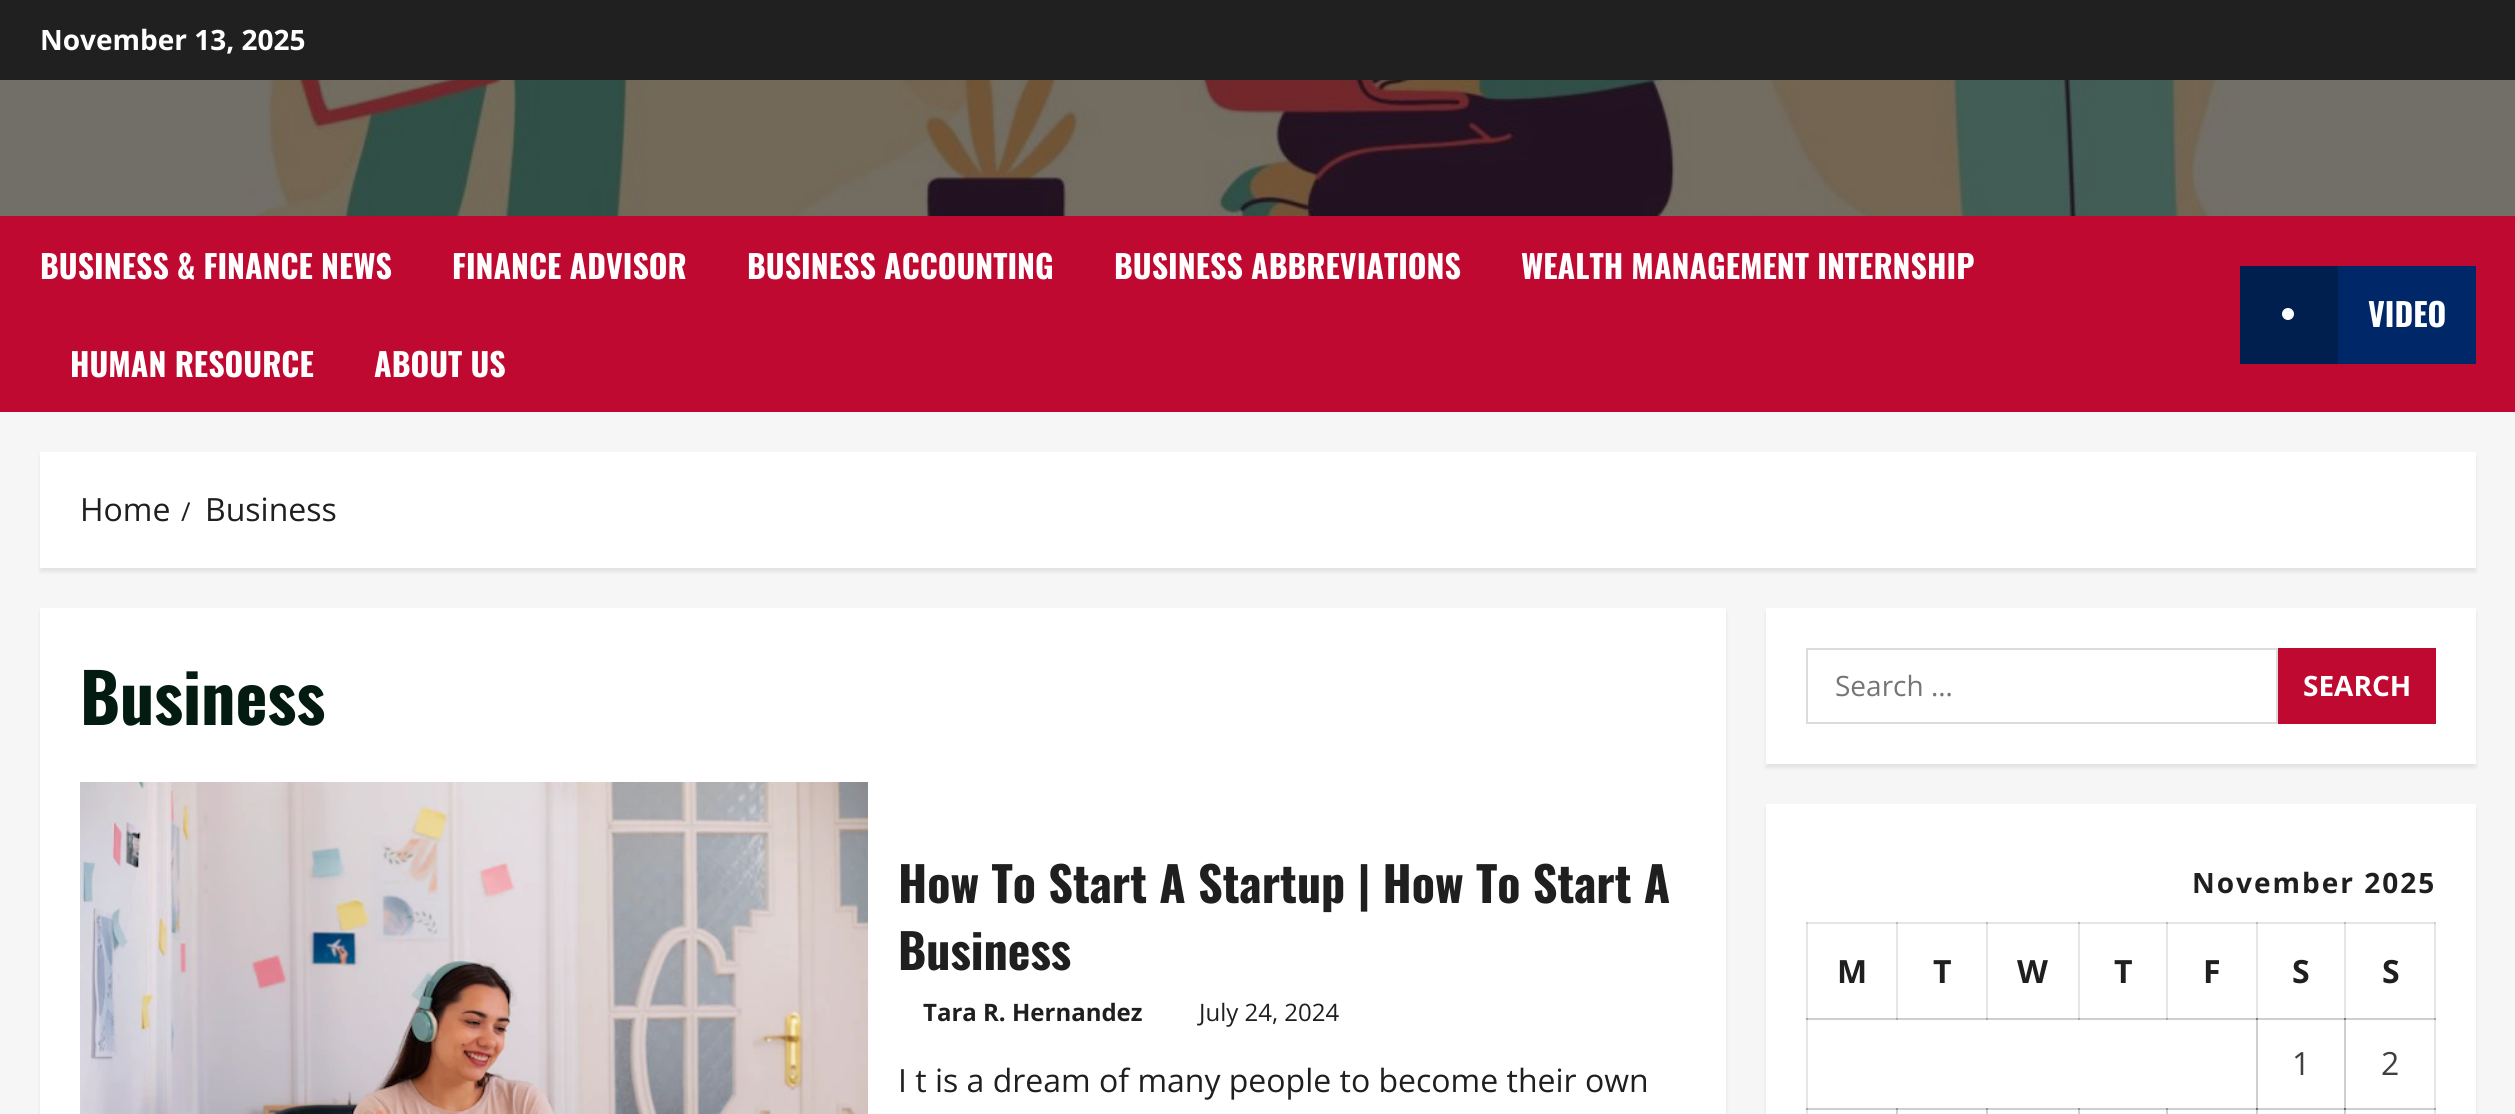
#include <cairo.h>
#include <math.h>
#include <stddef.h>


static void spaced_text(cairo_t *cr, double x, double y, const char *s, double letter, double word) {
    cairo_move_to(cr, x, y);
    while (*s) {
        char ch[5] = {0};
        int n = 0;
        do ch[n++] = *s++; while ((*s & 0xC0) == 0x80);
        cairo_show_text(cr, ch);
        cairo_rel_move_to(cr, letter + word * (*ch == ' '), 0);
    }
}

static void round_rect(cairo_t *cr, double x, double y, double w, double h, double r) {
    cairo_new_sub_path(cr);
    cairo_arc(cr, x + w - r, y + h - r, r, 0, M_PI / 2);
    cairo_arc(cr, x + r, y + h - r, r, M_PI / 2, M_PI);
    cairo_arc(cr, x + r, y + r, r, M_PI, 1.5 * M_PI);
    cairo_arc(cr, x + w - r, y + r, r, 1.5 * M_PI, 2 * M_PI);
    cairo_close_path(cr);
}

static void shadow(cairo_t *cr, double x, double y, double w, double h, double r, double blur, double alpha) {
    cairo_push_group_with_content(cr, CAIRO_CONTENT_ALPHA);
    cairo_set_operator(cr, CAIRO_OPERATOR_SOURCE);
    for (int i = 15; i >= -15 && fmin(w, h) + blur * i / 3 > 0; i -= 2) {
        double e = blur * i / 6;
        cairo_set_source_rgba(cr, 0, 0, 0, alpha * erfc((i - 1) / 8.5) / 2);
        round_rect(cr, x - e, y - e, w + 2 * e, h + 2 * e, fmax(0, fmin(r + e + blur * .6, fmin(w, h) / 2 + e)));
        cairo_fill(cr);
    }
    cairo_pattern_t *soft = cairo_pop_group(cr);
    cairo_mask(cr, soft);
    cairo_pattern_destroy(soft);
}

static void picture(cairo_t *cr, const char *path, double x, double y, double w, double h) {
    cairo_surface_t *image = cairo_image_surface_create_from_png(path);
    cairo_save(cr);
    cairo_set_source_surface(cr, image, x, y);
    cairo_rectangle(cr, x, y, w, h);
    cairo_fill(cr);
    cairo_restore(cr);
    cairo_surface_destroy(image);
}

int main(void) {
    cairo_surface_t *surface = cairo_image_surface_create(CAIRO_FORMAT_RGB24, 2515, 1114);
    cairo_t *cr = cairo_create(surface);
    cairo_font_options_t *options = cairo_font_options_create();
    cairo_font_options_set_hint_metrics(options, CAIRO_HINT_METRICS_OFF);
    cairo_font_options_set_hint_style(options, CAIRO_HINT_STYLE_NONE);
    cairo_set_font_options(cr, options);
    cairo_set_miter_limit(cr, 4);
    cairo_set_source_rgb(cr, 0.961, 0.961, 0.961);
    cairo_paint(cr);
    cairo_set_source_rgb(cr, 0.125, 0.125, 0.125);
    cairo_rectangle(cr, 0, 0, 2515, 80);
    cairo_fill(cr);
    cairo_select_font_face(cr, "Open Sans", CAIRO_FONT_SLANT_NORMAL, CAIRO_FONT_WEIGHT_BOLD);
    cairo_set_font_size(cr, 28);
    cairo_set_source_rgb(cr, 1, 1, 1);
    cairo_move_to(cr, 40, 50);
    cairo_show_text(cr, "November 13, 2025");
    picture(cr, "img1.png", 0, 80, 2515, 136);
    cairo_set_source_rgb(cr, 0.749, 0.039, 0.188);
    cairo_rectangle(cr, 0, 216, 2515, 196);
    cairo_fill(cr);
    cairo_select_font_face(cr, "Oswald", CAIRO_FONT_SLANT_NORMAL, CAIRO_FONT_WEIGHT_BOLD);
    cairo_set_font_size(cr, 32);
    cairo_set_source_rgb(cr, 1, 1, 1);
    cairo_move_to(cr, 40, 279);
    cairo_show_text(cr, "BUSINESS & FINANCE NEWS");
    cairo_move_to(cr, 452, 279);
    cairo_show_text(cr, "FINANCE ADVISOR");
    cairo_move_to(cr, 747, 279);
    cairo_show_text(cr, "BUSINESS ACCOUNTING");
    cairo_move_to(cr, 1114, 279);
    cairo_show_text(cr, "BUSINESS ABBREVIATIONS");
    cairo_move_to(cr, 1521, 279);
    cairo_show_text(cr, "WEALTH MANAGEMENT INTERNSHIP");
    cairo_move_to(cr, 70, 377);
    cairo_show_text(cr, "HUMAN RESOURCE");
    cairo_move_to(cr, 374, 377);
    cairo_show_text(cr, "ABOUT US");
    cairo_set_source_rgb(cr, 0, 0.157, 0.408);
    cairo_rectangle(cr, 2338, 266, 138, 98);
    cairo_fill(cr);
    cairo_set_source_rgb(cr, 0, 0.118, 0.306);
    cairo_rectangle(cr, 2240, 266, 98, 98);
    cairo_fill(cr);
    cairo_set_source_rgb(cr, 1, 1, 1);
    cairo_arc(cr, 2288, 314, 6, 0, 2 * M_PI);
    cairo_fill(cr);
    cairo_move_to(cr, 2368, 327);
    cairo_show_text(cr, "VIDEO");
    cairo_set_source_rgb(cr, 0, 0, 0);
    shadow(cr, 40, 456, 2436, 116, 0, 2, 0.08);
    cairo_set_source_rgb(cr, 1, 1, 1);
    cairo_rectangle(cr, 40, 452, 2436, 116);
    cairo_fill(cr);
    cairo_select_font_face(cr, "Open Sans", CAIRO_FONT_SLANT_NORMAL, CAIRO_FONT_WEIGHT_NORMAL);
    cairo_set_source_rgb(cr, 0.122, 0.122, 0.122);
    cairo_move_to(cr, 80, 521);
    cairo_show_text(cr, "Home");
    cairo_set_font_size(cr, 26);
    cairo_move_to(cr, 181, 521);
    cairo_show_text(cr, "/");
    cairo_set_font_size(cr, 32);
    cairo_move_to(cr, 205, 521);
    cairo_show_text(cr, "Business");
    cairo_set_source_rgb(cr, 0, 0, 0);
    shadow(cr, 40, 612, 1686, 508, 0, 2, 0.08);
    cairo_set_source_rgb(cr, 1, 1, 1);
    cairo_rectangle(cr, 40, 608, 1686, 506);
    cairo_fill(cr);
    cairo_select_font_face(cr, "Oswald", CAIRO_FONT_SLANT_NORMAL, CAIRO_FONT_WEIGHT_BOLD);
    cairo_set_font_size(cr, 68);
    cairo_set_source_rgb(cr, 0.012, 0.106, 0.067);
    cairo_move_to(cr, 80, 725);
    cairo_show_text(cr, "Business");
    picture(cr, "img2.png", 80, 782, 788, 332);
    cairo_set_font_size(cr, 48);
    cairo_set_source_rgb(cr, 0.122, 0.122, 0.122);
    cairo_move_to(cr, 898, 903);
    cairo_show_text(cr, "How To Start A Startup | How To Start A");
    cairo_move_to(cr, 898, 970);
    cairo_show_text(cr, "Business");
    cairo_select_font_face(cr, "Open Sans", CAIRO_FONT_SLANT_NORMAL, CAIRO_FONT_WEIGHT_BOLD);
    cairo_set_font_size(cr, 24);
    cairo_move_to(cr, 923, 1021);
    cairo_show_text(cr, "Tara R. Hernandez");
    cairo_select_font_face(cr, "Open Sans", CAIRO_FONT_SLANT_NORMAL, CAIRO_FONT_WEIGHT_NORMAL);
    cairo_move_to(cr, 1199, 1021);
    cairo_show_text(cr, "July 24, 2024");
    cairo_set_font_size(cr, 32);
    cairo_move_to(cr, 898, 1092);
    cairo_show_text(cr, "I t is a dream of many people to become their own");
    cairo_set_source_rgb(cr, 0, 0, 0);
    shadow(cr, 1766, 612, 710, 156, 0, 2, 0.08);
    cairo_set_source_rgb(cr, 1, 1, 1);
    cairo_rectangle(cr, 1766, 608, 710, 156);
    cairo_fill(cr);
    cairo_rectangle(cr, 1807, 649, 470, 74);
    cairo_set_source_rgb(cr, 0.863, 0.863, 0.863);
    cairo_stroke(cr);
    cairo_set_font_size(cr, 28);
    cairo_set_source_rgb(cr, 0.459, 0.459, 0.459);
    cairo_move_to(cr, 1835, 696);
    cairo_show_text(cr, "Search …");
    cairo_set_source_rgb(cr, 0.749, 0.039, 0.188);
    cairo_rectangle(cr, 2278, 648, 158, 76);
    cairo_fill(cr);
    cairo_select_font_face(cr, "Open Sans", CAIRO_FONT_SLANT_NORMAL, CAIRO_FONT_WEIGHT_BOLD);
    cairo_set_source_rgb(cr, 1, 1, 1);
    cairo_move_to(cr, 2303, 696);
    cairo_show_text(cr, "SEARCH");
    cairo_set_source_rgb(cr, 0, 0, 0);
    shadow(cr, 1766, 808, 710, 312, 0, 2, 0.08);
    cairo_set_source_rgb(cr, 1, 1, 1);
    cairo_rectangle(cr, 1766, 804, 710, 310);
    cairo_fill(cr);
    cairo_set_source_rgb(cr, 0.902, 0.902, 0.902);
    cairo_rectangle(cr, 1806, 922, 2, 192);
    cairo_fill(cr);
    cairo_rectangle(cr, 1806, 922, 92, 2);
    cairo_fill(cr);
    cairo_set_source_rgb(cr, 0.812, 0.812, 0.812);
    cairo_rectangle(cr, 1806, 922, 2, 2);
    cairo_fill(cr);
    cairo_set_source_rgb(cr, 0.902, 0.902, 0.902);
    cairo_rectangle(cr, 1896, 922, 2, 98);
    cairo_fill(cr);
    cairo_rectangle(cr, 1896, 922, 92, 2);
    cairo_fill(cr);
    cairo_set_source_rgb(cr, 0.729, 0.729, 0.729);
    cairo_rectangle(cr, 1896, 922, 2, 2);
    cairo_fill(cr);
    cairo_set_source_rgb(cr, 0.902, 0.902, 0.902);
    cairo_rectangle(cr, 1986, 922, 2, 98);
    cairo_fill(cr);
    cairo_rectangle(cr, 1986, 922, 94, 2);
    cairo_fill(cr);
    cairo_set_source_rgb(cr, 0.729, 0.729, 0.729);
    cairo_rectangle(cr, 1986, 922, 2, 2);
    cairo_fill(cr);
    cairo_set_source_rgb(cr, 0.902, 0.902, 0.902);
    cairo_rectangle(cr, 2078, 922, 2, 98);
    cairo_fill(cr);
    cairo_rectangle(cr, 2078, 922, 90, 2);
    cairo_fill(cr);
    cairo_set_source_rgb(cr, 0.729, 0.729, 0.729);
    cairo_rectangle(cr, 2078, 922, 2, 2);
    cairo_fill(cr);
    cairo_set_source_rgb(cr, 0.902, 0.902, 0.902);
    cairo_rectangle(cr, 2166, 922, 2, 98);
    cairo_fill(cr);
    cairo_rectangle(cr, 2166, 922, 92, 2);
    cairo_fill(cr);
    cairo_set_source_rgb(cr, 0.729, 0.729, 0.729);
    cairo_rectangle(cr, 2166, 922, 2, 2);
    cairo_fill(cr);
    cairo_set_source_rgb(cr, 0.902, 0.902, 0.902);
    cairo_rectangle(cr, 2256, 922, 2, 98);
    cairo_fill(cr);
    cairo_rectangle(cr, 2256, 922, 90, 2);
    cairo_fill(cr);
    cairo_set_source_rgb(cr, 0.729, 0.729, 0.729);
    cairo_rectangle(cr, 2256, 922, 2, 2);
    cairo_fill(cr);
    cairo_set_source_rgb(cr, 0.902, 0.902, 0.902);
    cairo_rectangle(cr, 2344, 922, 2, 98);
    cairo_fill(cr);
    cairo_rectangle(cr, 2434, 922, 2, 192);
    cairo_fill(cr);
    cairo_set_source_rgb(cr, 0.812, 0.812, 0.812);
    cairo_rectangle(cr, 1806, 1018, 452, 2);
    cairo_fill(cr);
    cairo_set_source_rgb(cr, 0.655, 0.655, 0.655);
    cairo_rectangle(cr, 1896, 1018, 2, 2);
    cairo_fill(cr);
    cairo_rectangle(cr, 1986, 1018, 2, 2);
    cairo_fill(cr);
    cairo_rectangle(cr, 2078, 1018, 2, 2);
    cairo_fill(cr);
    cairo_rectangle(cr, 2166, 1018, 2, 2);
    cairo_fill(cr);
    cairo_rectangle(cr, 1806, 1018, 2, 2);
    cairo_fill(cr);
    cairo_set_source_rgb(cr, 0.812, 0.812, 0.812);
    cairo_rectangle(cr, 2256, 1018, 2, 92);
    cairo_fill(cr);
    cairo_rectangle(cr, 2256, 1018, 90, 2);
    cairo_fill(cr);
    cairo_set_source_rgb(cr, 0.478, 0.478, 0.478);
    cairo_rectangle(cr, 2256, 1018, 2, 2);
    cairo_fill(cr);
    cairo_set_source_rgb(cr, 0.812, 0.812, 0.812);
    cairo_rectangle(cr, 2344, 1018, 2, 92);
    cairo_fill(cr);
    cairo_rectangle(cr, 1806, 1108, 92, 2);
    cairo_fill(cr);
    cairo_set_source_rgb(cr, 0.655, 0.655, 0.655);
    cairo_rectangle(cr, 1806, 1108, 2, 2);
    cairo_fill(cr);
    cairo_set_source_rgb(cr, 0.812, 0.812, 0.812);
    cairo_rectangle(cr, 1896, 1108, 2, 6);
    cairo_fill(cr);
    cairo_rectangle(cr, 1896, 1108, 92, 2);
    cairo_fill(cr);
    cairo_set_source_rgb(cr, 0.588, 0.588, 0.588);
    cairo_rectangle(cr, 1896, 1108, 2, 2);
    cairo_fill(cr);
    cairo_set_source_rgb(cr, 0.812, 0.812, 0.812);
    cairo_rectangle(cr, 1986, 1108, 2, 6);
    cairo_fill(cr);
    cairo_rectangle(cr, 1986, 1108, 94, 2);
    cairo_fill(cr);
    cairo_set_source_rgb(cr, 0.588, 0.588, 0.588);
    cairo_rectangle(cr, 1986, 1108, 2, 2);
    cairo_fill(cr);
    cairo_set_source_rgb(cr, 0.812, 0.812, 0.812);
    cairo_rectangle(cr, 2078, 1108, 2, 6);
    cairo_fill(cr);
    cairo_rectangle(cr, 2078, 1108, 90, 2);
    cairo_fill(cr);
    cairo_set_source_rgb(cr, 0.588, 0.588, 0.588);
    cairo_rectangle(cr, 2078, 1108, 2, 2);
    cairo_fill(cr);
    cairo_set_source_rgb(cr, 0.812, 0.812, 0.812);
    cairo_rectangle(cr, 2166, 1108, 2, 6);
    cairo_fill(cr);
    cairo_rectangle(cr, 2166, 1108, 92, 2);
    cairo_fill(cr);
    cairo_set_source_rgb(cr, 0.588, 0.588, 0.588);
    cairo_rectangle(cr, 2166, 1108, 2, 2);
    cairo_fill(cr);
    cairo_set_source_rgb(cr, 0.812, 0.812, 0.812);
    cairo_rectangle(cr, 2256, 1108, 2, 6);
    cairo_fill(cr);
    cairo_rectangle(cr, 2256, 1108, 90, 2);
    cairo_fill(cr);
    cairo_set_source_rgb(cr, 0.431, 0.431, 0.431);
    cairo_rectangle(cr, 2256, 1108, 2, 2);
    cairo_fill(cr);
    cairo_set_source_rgb(cr, 0.812, 0.812, 0.812);
    cairo_rectangle(cr, 2344, 1108, 2, 6);
    cairo_fill(cr);
    cairo_set_source_rgb(cr, 0.122, 0.122, 0.122);
    spaced_text(cr, 2192, 893, "November 2025", 2, 0);
    cairo_set_font_size(cr, 32);
    cairo_move_to(cr, 1837, 983);
    cairo_show_text(cr, "M");
    cairo_move_to(cr, 1933, 983);
    cairo_show_text(cr, "T");
    cairo_move_to(cr, 2017, 983);
    cairo_show_text(cr, "W");
    cairo_move_to(cr, 2114, 983);
    cairo_show_text(cr, "T");
    cairo_move_to(cr, 2203, 983);
    cairo_show_text(cr, "F");
    cairo_move_to(cr, 2292, 983);
    cairo_show_text(cr, "S");
    cairo_set_source_rgb(cr, 0.902, 0.902, 0.902);
    cairo_rectangle(cr, 2344, 922, 92, 2);
    cairo_fill(cr);
    cairo_set_source_rgb(cr, 0.729, 0.729, 0.729);
    cairo_rectangle(cr, 2344, 922, 2, 2);
    cairo_fill(cr);
    cairo_set_source_rgb(cr, 0.812, 0.812, 0.812);
    cairo_rectangle(cr, 2434, 922, 2, 2);
    cairo_fill(cr);
    cairo_set_source_rgb(cr, 0.122, 0.122, 0.122);
    cairo_move_to(cr, 2382, 983);
    cairo_show_text(cr, "S");
    cairo_select_font_face(cr, "Open Sans", CAIRO_FONT_SLANT_NORMAL, CAIRO_FONT_WEIGHT_NORMAL);
    cairo_set_source_rgb(cr, 0.251, 0.251, 0.251);
    cairo_move_to(cr, 2292, 1075);
    cairo_show_text(cr, "1");
    cairo_set_source_rgb(cr, 0.812, 0.812, 0.812);
    cairo_rectangle(cr, 2344, 1018, 92, 2);
    cairo_fill(cr);
    cairo_set_source_rgb(cr, 0.478, 0.478, 0.478);
    cairo_rectangle(cr, 2344, 1018, 2, 2);
    cairo_fill(cr);
    cairo_set_source_rgb(cr, 0.655, 0.655, 0.655);
    cairo_rectangle(cr, 2434, 1018, 2, 2);
    cairo_fill(cr);
    cairo_set_source_rgb(cr, 0.251, 0.251, 0.251);
    cairo_move_to(cr, 2381, 1075);
    cairo_show_text(cr, "2");
    cairo_set_source_rgb(cr, 0.812, 0.812, 0.812);
    cairo_rectangle(cr, 2344, 1108, 92, 2);
    cairo_fill(cr);
    cairo_set_source_rgb(cr, 0.431, 0.431, 0.431);
    cairo_rectangle(cr, 2344, 1108, 2, 2);
    cairo_fill(cr);
    cairo_set_source_rgb(cr, 0.655, 0.655, 0.655);
    cairo_rectangle(cr, 2434, 1108, 2, 2);
    cairo_fill(cr);
    cairo_surface_write_to_png(surface, "page.png");
    cairo_font_options_destroy(options);
    cairo_destroy(cr);
    cairo_surface_destroy(surface);
    return 0;
}
